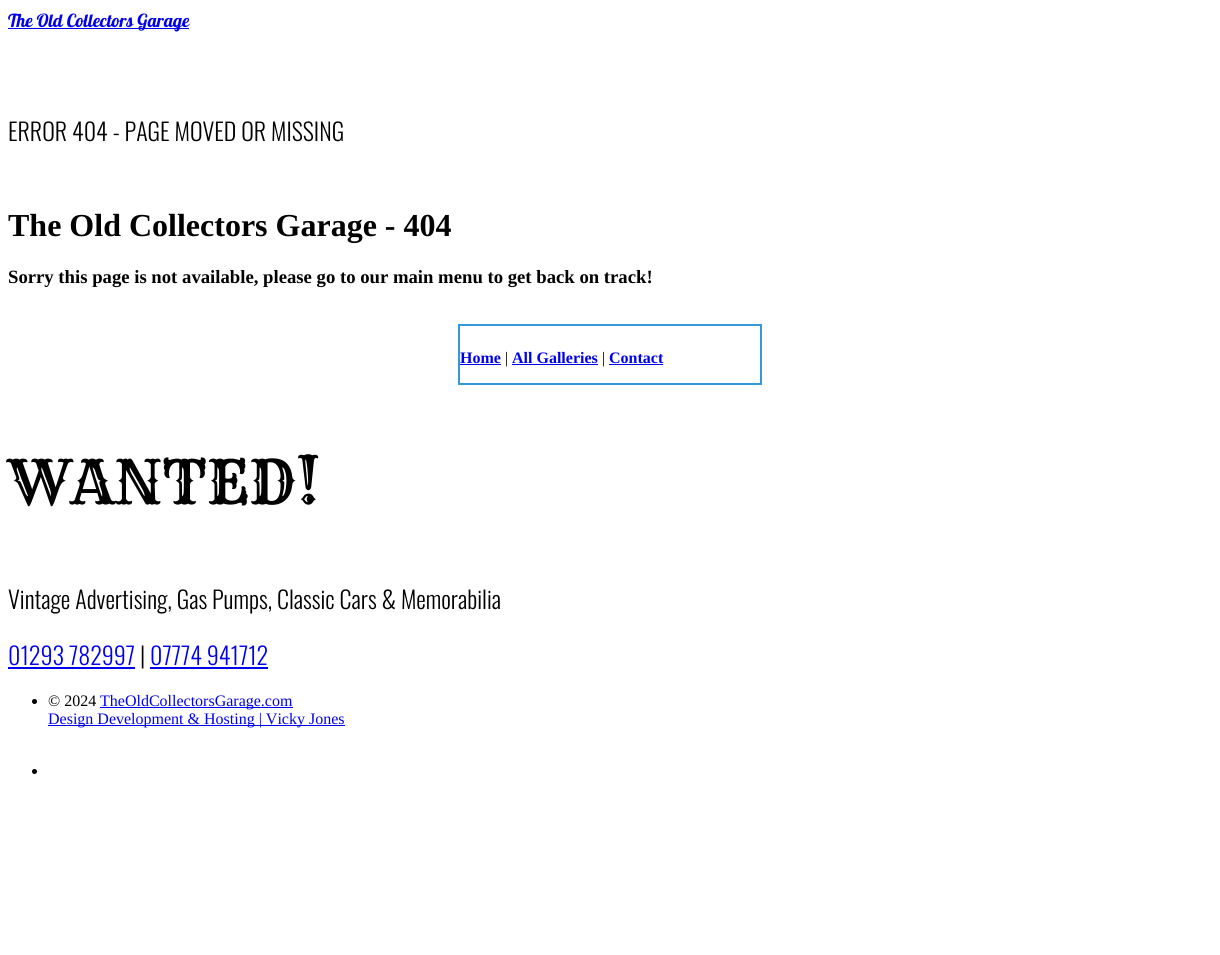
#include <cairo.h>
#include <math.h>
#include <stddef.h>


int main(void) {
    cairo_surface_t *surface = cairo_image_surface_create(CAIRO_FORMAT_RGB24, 1220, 955);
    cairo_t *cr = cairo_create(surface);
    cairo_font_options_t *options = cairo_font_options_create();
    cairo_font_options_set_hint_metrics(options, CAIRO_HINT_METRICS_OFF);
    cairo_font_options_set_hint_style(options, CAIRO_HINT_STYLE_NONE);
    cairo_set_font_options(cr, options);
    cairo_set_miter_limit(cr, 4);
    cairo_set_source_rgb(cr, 1, 1, 1);
    cairo_paint(cr);
    cairo_set_source_rgb(cr, 0, 0, 0.933);
    cairo_rectangle(cr, 8, 28, 181, 1);
    cairo_fill(cr);
    cairo_select_font_face(cr, "Galada", CAIRO_FONT_SLANT_NORMAL, CAIRO_FONT_WEIGHT_NORMAL);
    cairo_set_font_size(cr, 18);
    cairo_move_to(cr, 8, 27);
    cairo_show_text(cr, "The Old Collectors Garage");
    cairo_select_font_face(cr, "Oswald Light", CAIRO_FONT_SLANT_NORMAL, CAIRO_FONT_WEIGHT_NORMAL);
    cairo_set_font_size(cr, 24);
    cairo_set_source_rgb(cr, 0, 0, 0);
    cairo_move_to(cr, 8, 141);
    cairo_show_text(cr, "ERROR 404 - PAGE MOVED OR MISSING");
    cairo_select_font_face(cr, "Liberation Serif", CAIRO_FONT_SLANT_NORMAL, CAIRO_FONT_WEIGHT_BOLD);
    cairo_set_font_size(cr, 32);
    cairo_move_to(cr, 8, 236);
    cairo_show_text(cr, "The Old Collectors Garage - 404");
    cairo_set_font_size(cr, 18.7);
    cairo_move_to(cr, 8, 283);
    cairo_show_text(cr, "Sorry this page is not available, please go to our main menu to get back on track!");
    cairo_rectangle(cr, 459, 325, 302, 59);
    cairo_set_source_rgb(cr, 0.204, 0.596, 0.859);
    cairo_stroke(cr);
    cairo_set_font_size(cr, 16);
    cairo_set_source_rgb(cr, 0, 0, 0.933);
    cairo_move_to(cr, 460, 363);
    cairo_show_text(cr, "Home");
    cairo_rectangle(cr, 460, 364, 41, 1);
    cairo_fill(cr);
    cairo_select_font_face(cr, "Liberation Serif", CAIRO_FONT_SLANT_NORMAL, CAIRO_FONT_WEIGHT_NORMAL);
    cairo_set_source_rgb(cr, 0, 0, 0);
    cairo_move_to(cr, 505, 363);
    cairo_show_text(cr, "|");
    cairo_select_font_face(cr, "Liberation Serif", CAIRO_FONT_SLANT_NORMAL, CAIRO_FONT_WEIGHT_BOLD);
    cairo_set_source_rgb(cr, 0, 0, 0.933);
    cairo_move_to(cr, 512, 363);
    cairo_show_text(cr, "All Galleries");
    cairo_rectangle(cr, 512, 364, 86, 1);
    cairo_fill(cr);
    cairo_select_font_face(cr, "Liberation Serif", CAIRO_FONT_SLANT_NORMAL, CAIRO_FONT_WEIGHT_NORMAL);
    cairo_set_source_rgb(cr, 0, 0, 0);
    cairo_move_to(cr, 602, 363);
    cairo_show_text(cr, "|");
    cairo_select_font_face(cr, "Liberation Serif", CAIRO_FONT_SLANT_NORMAL, CAIRO_FONT_WEIGHT_BOLD);
    cairo_set_source_rgb(cr, 0, 0, 0.933);
    cairo_move_to(cr, 609, 363);
    cairo_show_text(cr, "Contact");
    cairo_rectangle(cr, 609, 364, 54, 1);
    cairo_fill(cr);
    cairo_select_font_face(cr, "Rye", CAIRO_FONT_SLANT_NORMAL, CAIRO_FONT_WEIGHT_NORMAL);
    cairo_set_font_size(cr, 60);
    cairo_set_source_rgb(cr, 0, 0, 0);
    cairo_move_to(cr, 8, 504);
    cairo_show_text(cr, "WANTED!");
    cairo_select_font_face(cr, "Oswald Light", CAIRO_FONT_SLANT_NORMAL, CAIRO_FONT_WEIGHT_NORMAL);
    cairo_set_font_size(cr, 24);
    cairo_move_to(cr, 8, 609);
    cairo_show_text(cr, "Vintage Advertising, Gas Pumps, Classic Cars & Memorabilia");
    cairo_set_source_rgb(cr, 0, 0, 0.933);
    cairo_move_to(cr, 8, 665);
    cairo_show_text(cr, "01293 782997");
    cairo_rectangle(cr, 8, 667, 127, 2);
    cairo_fill(cr);
    cairo_set_source_rgb(cr, 0, 0, 0);
    cairo_move_to(cr, 140, 665);
    cairo_show_text(cr, "|");
    cairo_set_source_rgb(cr, 0, 0, 0.933);
    cairo_move_to(cr, 150, 665);
    cairo_show_text(cr, "07774 941712");
    cairo_rectangle(cr, 150, 667, 118, 2);
    cairo_fill(cr);
    cairo_set_source_rgb(cr, 0, 0, 0);
    cairo_arc(cr, 34.5, 701.5, 2.5, 0, 2 * M_PI);
    cairo_fill(cr);
    cairo_select_font_face(cr, "Liberation Serif", CAIRO_FONT_SLANT_NORMAL, CAIRO_FONT_WEIGHT_NORMAL);
    cairo_set_font_size(cr, 16);
    cairo_move_to(cr, 48, 706);
    cairo_show_text(cr, "© 2024");
    cairo_set_source_rgb(cr, 0, 0, 0.933);
    cairo_rectangle(cr, 100, 707, 193, 1);
    cairo_fill(cr);
    cairo_move_to(cr, 100, 706);
    cairo_show_text(cr, "TheOldCollectorsGarage.com");
    cairo_rectangle(cr, 48, 725, 297, 1);
    cairo_fill(cr);
    cairo_move_to(cr, 48, 724);
    cairo_show_text(cr, "Design Development & Hosting | Vicky Jones");
    cairo_set_source_rgb(cr, 0, 0, 0);
    cairo_new_path(cr);
    cairo_arc(cr, 34.5, 771.5, 2.5, 0, 2 * M_PI);
    cairo_fill(cr);
    cairo_surface_write_to_png(surface, "page.png");
    cairo_font_options_destroy(options);
    cairo_destroy(cr);
    cairo_surface_destroy(surface);
    return 0;
}
